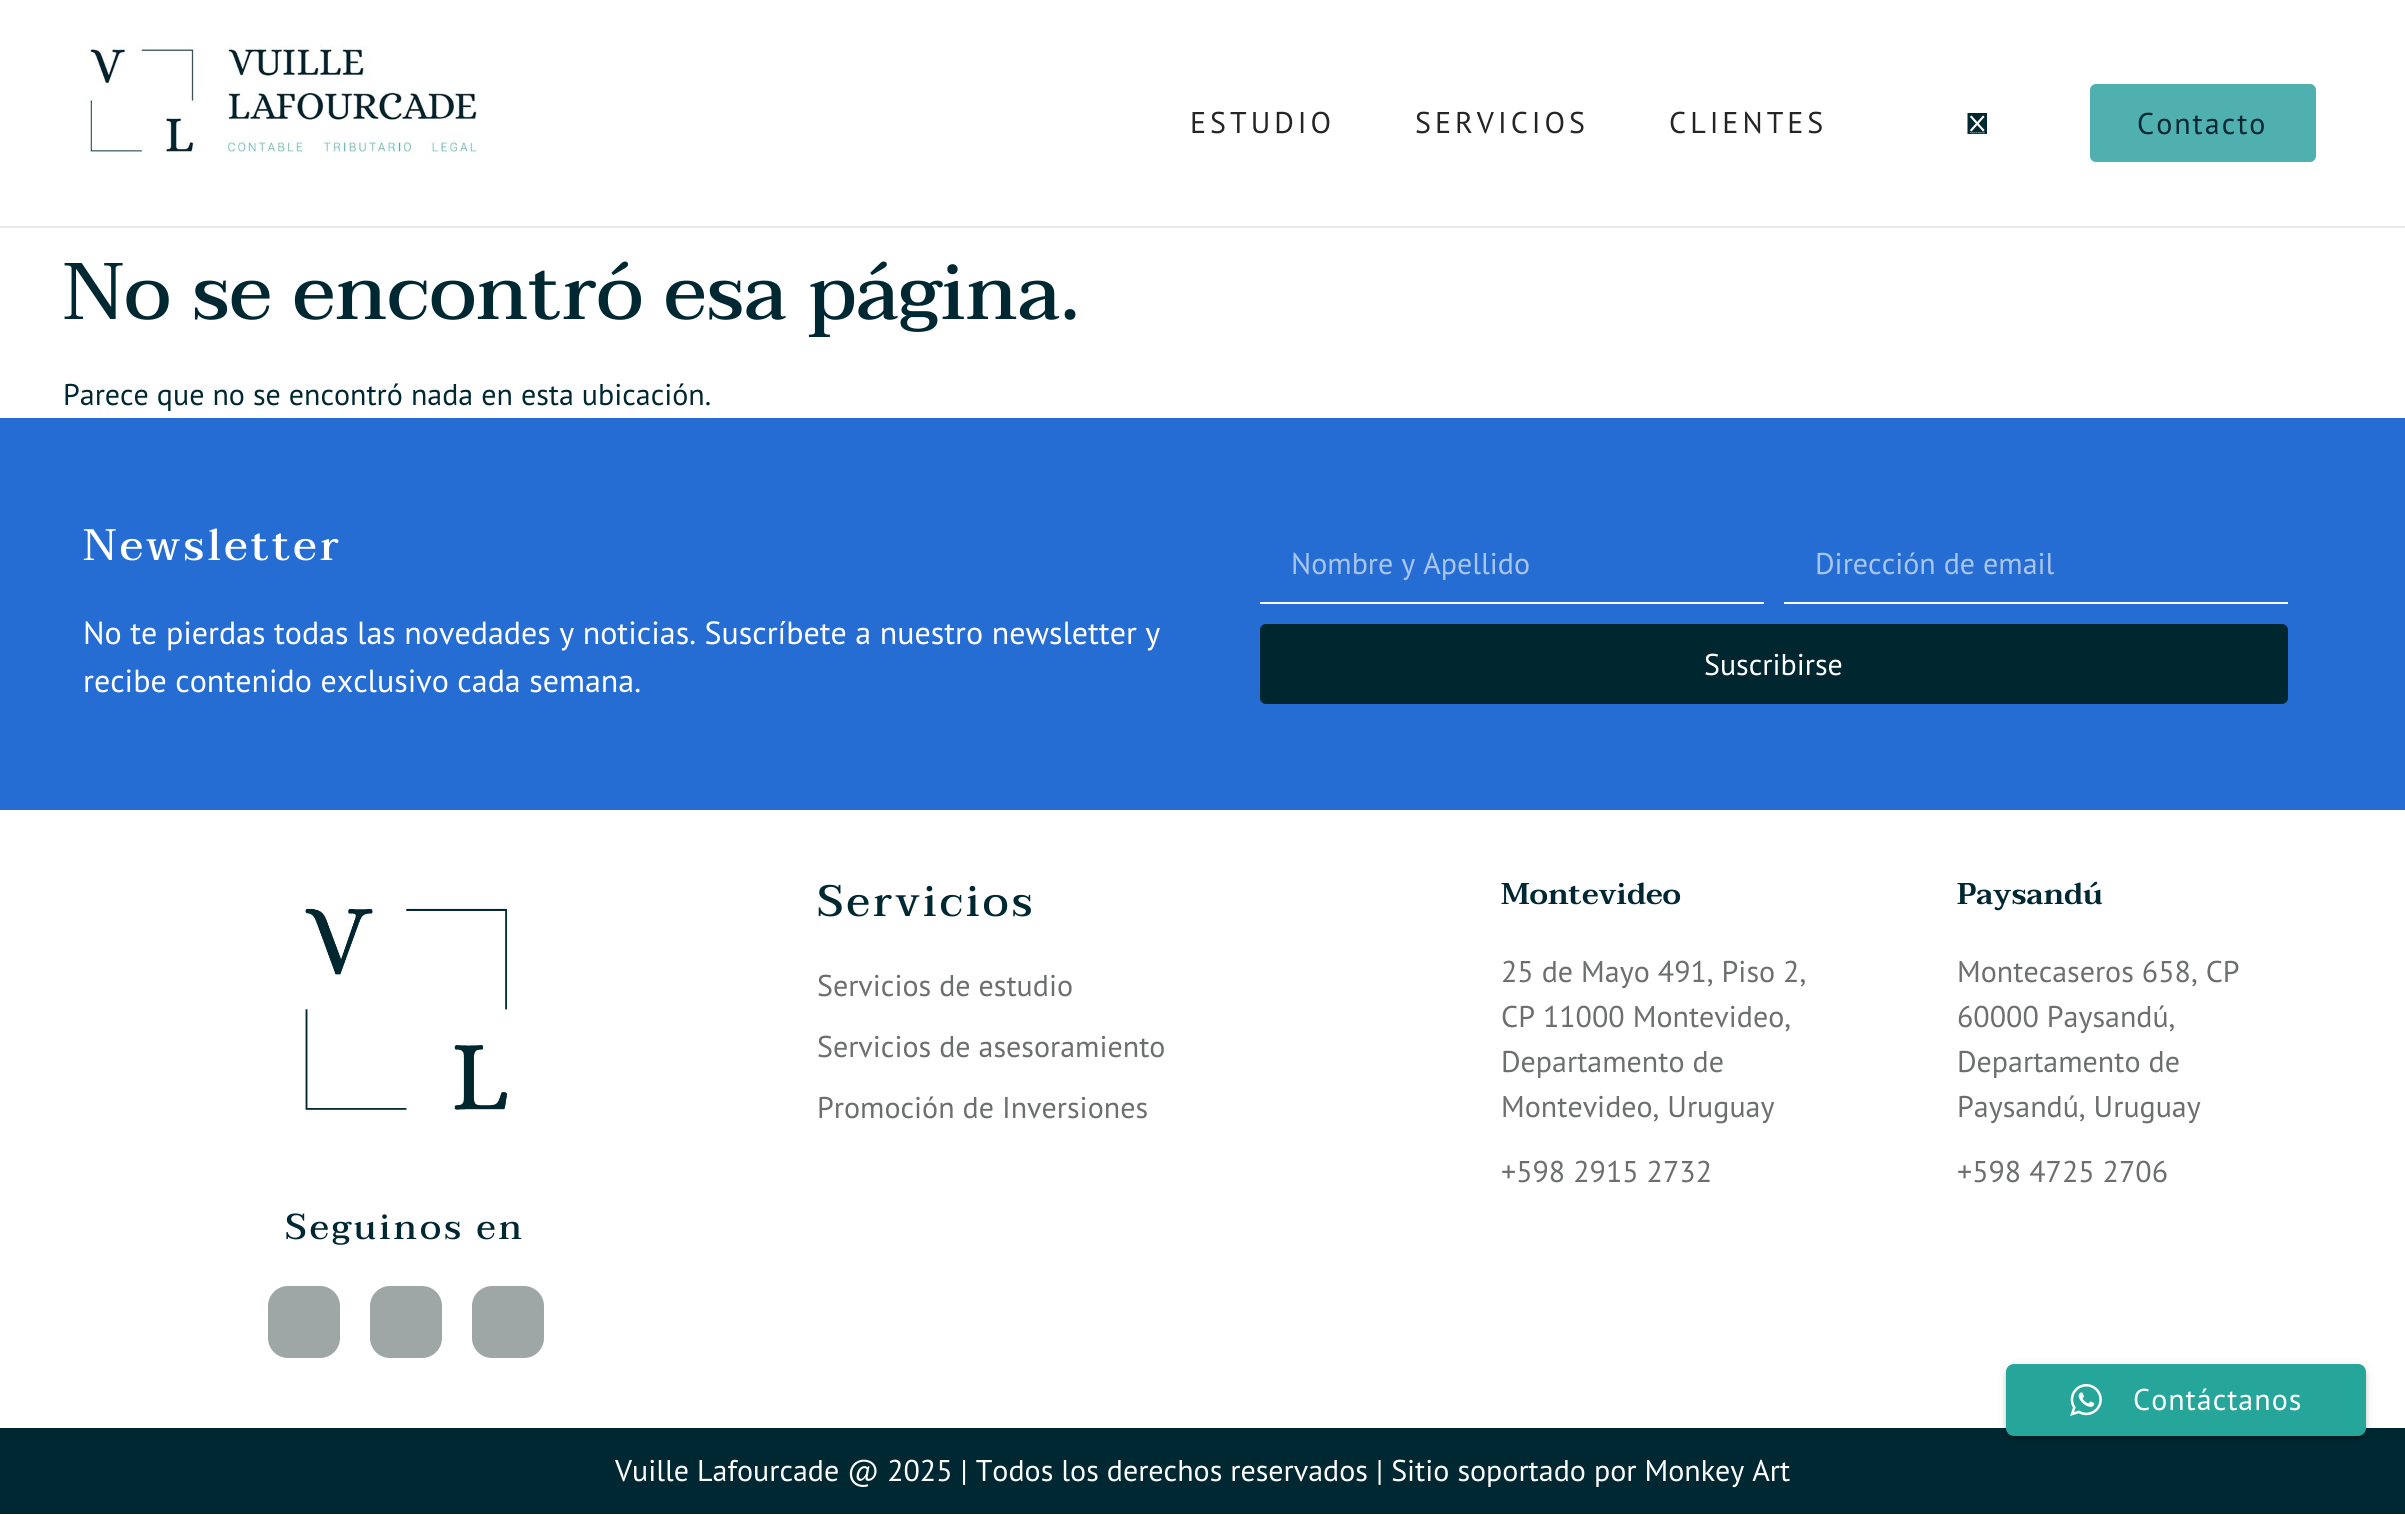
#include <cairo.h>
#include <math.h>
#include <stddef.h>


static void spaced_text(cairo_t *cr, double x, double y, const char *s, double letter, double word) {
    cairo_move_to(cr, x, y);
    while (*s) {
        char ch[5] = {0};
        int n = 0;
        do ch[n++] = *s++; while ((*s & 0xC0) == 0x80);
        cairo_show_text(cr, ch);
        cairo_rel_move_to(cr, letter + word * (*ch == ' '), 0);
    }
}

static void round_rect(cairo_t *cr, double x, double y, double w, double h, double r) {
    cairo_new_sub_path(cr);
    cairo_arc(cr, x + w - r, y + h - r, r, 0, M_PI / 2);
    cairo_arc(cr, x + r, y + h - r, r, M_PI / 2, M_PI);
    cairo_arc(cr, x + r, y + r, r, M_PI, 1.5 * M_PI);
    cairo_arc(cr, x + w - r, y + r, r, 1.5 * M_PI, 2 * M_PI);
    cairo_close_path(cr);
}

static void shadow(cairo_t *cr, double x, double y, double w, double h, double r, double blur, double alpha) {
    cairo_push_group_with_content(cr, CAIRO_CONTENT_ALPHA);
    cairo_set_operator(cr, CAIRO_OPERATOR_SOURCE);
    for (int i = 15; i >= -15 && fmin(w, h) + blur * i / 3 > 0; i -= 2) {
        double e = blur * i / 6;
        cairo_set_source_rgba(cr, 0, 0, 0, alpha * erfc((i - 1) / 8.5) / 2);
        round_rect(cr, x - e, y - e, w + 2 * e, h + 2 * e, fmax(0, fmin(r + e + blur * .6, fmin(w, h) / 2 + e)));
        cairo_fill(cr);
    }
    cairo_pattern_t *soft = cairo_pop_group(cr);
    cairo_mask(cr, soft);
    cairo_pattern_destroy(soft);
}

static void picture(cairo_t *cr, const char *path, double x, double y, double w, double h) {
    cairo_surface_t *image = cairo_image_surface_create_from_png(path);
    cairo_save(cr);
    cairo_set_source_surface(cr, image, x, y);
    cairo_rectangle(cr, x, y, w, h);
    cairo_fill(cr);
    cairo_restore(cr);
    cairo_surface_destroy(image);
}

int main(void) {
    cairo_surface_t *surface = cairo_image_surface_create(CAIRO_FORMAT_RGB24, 2405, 1515);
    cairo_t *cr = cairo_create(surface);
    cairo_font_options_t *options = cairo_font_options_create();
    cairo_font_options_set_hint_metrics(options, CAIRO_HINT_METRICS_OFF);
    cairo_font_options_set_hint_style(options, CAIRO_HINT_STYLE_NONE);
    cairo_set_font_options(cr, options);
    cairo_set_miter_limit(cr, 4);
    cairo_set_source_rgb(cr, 1, 1, 1);
    cairo_paint(cr);
    cairo_set_source_rgb(cr, 0.914, 0.914, 0.914);
    cairo_rectangle(cr, 0, 226, 2405, 2);
    cairo_fill(cr);
    picture(cr, "img1.png", 84, 44, 395, 113);
    cairo_select_font_face(cr, "PT Sans", CAIRO_FONT_SLANT_NORMAL, CAIRO_FONT_WEIGHT_NORMAL);
    cairo_set_font_size(cr, 30);
    cairo_set_source_rgb(cr, 0.145, 0.145, 0.145);
    spaced_text(cr, 1190, 133, "ESTUDIO", 4, 0);
    spaced_text(cr, 1415, 133, "SERVICIOS", 4, 0);
    spaced_text(cr, 1669, 133, "CLIENTES", 4, 0);
    picture(cr, "img2.png", 1967, 113, 20, 21);
    cairo_set_source_rgb(cr, 0.314, 0.686, 0.686);
    round_rect(cr, 2090, 84, 226, 78, 6);
    cairo_fill(cr);
    cairo_set_source_rgb(cr, 0, 0.157, 0.196);
    spaced_text(cr, 2137, 134, "Contacto", 2, 0);
    cairo_select_font_face(cr, "Taviraj Medium", CAIRO_FONT_SLANT_NORMAL, CAIRO_FONT_WEIGHT_NORMAL);
    cairo_set_font_size(cr, 80);
    cairo_move_to(cr, 63, 319);
    cairo_show_text(cr, "No se encontró esa página.");
    cairo_select_font_face(cr, "PT Sans", CAIRO_FONT_SLANT_NORMAL, CAIRO_FONT_WEIGHT_NORMAL);
    cairo_set_font_size(cr, 30);
    cairo_move_to(cr, 63, 405);
    cairo_show_text(cr, "Parece que no se encontró nada en esta ubicación.");
    cairo_set_source_rgb(cr, 0.149, 0.427, 0.827);
    cairo_rectangle(cr, 0, 418, 2405, 392);
    cairo_fill(cr);
    cairo_select_font_face(cr, "Taviraj Medium", CAIRO_FONT_SLANT_NORMAL, CAIRO_FONT_WEIGHT_NORMAL);
    cairo_set_font_size(cr, 44);
    cairo_set_source_rgb(cr, 1, 1, 1);
    spaced_text(cr, 83, 560, "Newsletter", 3, 0);
    cairo_select_font_face(cr, "PT Sans", CAIRO_FONT_SLANT_NORMAL, CAIRO_FONT_WEIGHT_NORMAL);
    cairo_set_font_size(cr, 32);
    cairo_move_to(cr, 83, 644);
    cairo_show_text(cr, "No te pierdas todas las novedades y noticias. Suscríbete a nuestro newsletter y");
    cairo_move_to(cr, 83, 692);
    cairo_show_text(cr, "recibe contenido exclusivo cada semana.");
    cairo_set_source_rgb(cr, 0.973, 0.973, 0.973);
    cairo_rectangle(cr, 1260, 602, 504, 2);
    cairo_fill(cr);
    cairo_set_font_size(cr, 30);
    cairo_set_source_rgb(cr, 0.659, 0.773, 0.929);
    cairo_move_to(cr, 1291, 574);
    cairo_show_text(cr, "Nombre y Apellido");
    cairo_set_source_rgb(cr, 0.973, 0.973, 0.973);
    cairo_rectangle(cr, 1784, 602, 504, 2);
    cairo_fill(cr);
    cairo_set_source_rgb(cr, 0.659, 0.773, 0.929);
    cairo_move_to(cr, 1815, 574);
    cairo_show_text(cr, "Dirección de email");
    cairo_set_source_rgb(cr, 0, 0.149, 0.188);
    round_rect(cr, 1260, 624, 1028, 80, 6);
    cairo_fill(cr);
    cairo_set_source_rgb(cr, 1, 1, 1);
    cairo_move_to(cr, 1704, 675);
    cairo_show_text(cr, "Suscribirse");
    cairo_select_font_face(cr, "Taviraj Medium", CAIRO_FONT_SLANT_NORMAL, CAIRO_FONT_WEIGHT_NORMAL);
    cairo_set_font_size(cr, 44);
    cairo_set_source_rgb(cr, 0, 0.157, 0.196);
    spaced_text(cr, 817, 916, "Servicios", 3, 0);
    cairo_select_font_face(cr, "PT Sans", CAIRO_FONT_SLANT_NORMAL, CAIRO_FONT_WEIGHT_NORMAL);
    cairo_set_font_size(cr, 30);
    cairo_set_source_rgb(cr, 0.427, 0.431, 0.431);
    cairo_move_to(cr, 817, 996);
    cairo_show_text(cr, "Servicios de estudio");
    cairo_move_to(cr, 817, 1057);
    cairo_show_text(cr, "Servicios de asesoramiento");
    cairo_move_to(cr, 817, 1118);
    cairo_show_text(cr, "Promoción de Inversiones");
    cairo_select_font_face(cr, "Taviraj SemiBold", CAIRO_FONT_SLANT_NORMAL, CAIRO_FONT_WEIGHT_NORMAL);
    cairo_set_source_rgb(cr, 0, 0.157, 0.196);
    cairo_move_to(cr, 1501, 904);
    cairo_show_text(cr, "Montevideo");
    cairo_select_font_face(cr, "PT Sans", CAIRO_FONT_SLANT_NORMAL, CAIRO_FONT_WEIGHT_NORMAL);
    cairo_set_source_rgb(cr, 0.427, 0.431, 0.431);
    cairo_move_to(cr, 1501, 982);
    cairo_show_text(cr, "25 de Mayo 491, Piso 2,");
    cairo_move_to(cr, 1501, 1027);
    cairo_show_text(cr, "CP 11000 Montevideo,");
    cairo_move_to(cr, 1501, 1072);
    cairo_show_text(cr, "Departamento de");
    cairo_move_to(cr, 1501, 1117);
    cairo_show_text(cr, "Montevideo, Uruguay");
    cairo_move_to(cr, 1501, 1182);
    cairo_show_text(cr, "+598 2915 2732");
    cairo_select_font_face(cr, "Taviraj SemiBold", CAIRO_FONT_SLANT_NORMAL, CAIRO_FONT_WEIGHT_NORMAL);
    cairo_set_source_rgb(cr, 0, 0.157, 0.196);
    cairo_move_to(cr, 1957, 904);
    cairo_show_text(cr, "Paysandú");
    cairo_select_font_face(cr, "PT Sans", CAIRO_FONT_SLANT_NORMAL, CAIRO_FONT_WEIGHT_NORMAL);
    cairo_set_source_rgb(cr, 0.427, 0.431, 0.431);
    cairo_move_to(cr, 1957, 982);
    cairo_show_text(cr, "Montecaseros 658, CP");
    cairo_move_to(cr, 1957, 1027);
    cairo_show_text(cr, "60000 Paysandú,");
    cairo_move_to(cr, 1957, 1072);
    cairo_show_text(cr, "Departamento de");
    cairo_move_to(cr, 1957, 1117);
    cairo_show_text(cr, "Paysandú, Uruguay");
    cairo_move_to(cr, 1957, 1182);
    cairo_show_text(cr, "+598 4725 2706");
    picture(cr, "img3.png", 305, 908, 202, 202);
    cairo_select_font_face(cr, "Taviraj Medium", CAIRO_FONT_SLANT_NORMAL, CAIRO_FONT_WEIGHT_NORMAL);
    cairo_set_font_size(cr, 36);
    cairo_set_source_rgb(cr, 0, 0.157, 0.196);
    spaced_text(cr, 285, 1239, "Seguinos en", 3, 0);
    cairo_set_source_rgb(cr, 0.62, 0.651, 0.651);
    round_rect(cr, 268, 1286, 72, 72, 20);
    cairo_fill(cr);
    round_rect(cr, 370, 1286, 72, 72, 20);
    cairo_fill(cr);
    round_rect(cr, 472, 1286, 72, 72, 20);
    cairo_fill(cr);
    cairo_set_source_rgb(cr, 0, 0.157, 0.196);
    cairo_rectangle(cr, 0, 1428, 2405, 86);
    cairo_fill(cr);
    cairo_select_font_face(cr, "PT Sans", CAIRO_FONT_SLANT_NORMAL, CAIRO_FONT_WEIGHT_NORMAL);
    cairo_set_font_size(cr, 30);
    cairo_set_source_rgb(cr, 1, 1, 1);
    cairo_move_to(cr, 615, 1481);
    cairo_show_text(cr, "Vuille Lafourcade @ 2025 | Todos los derechos reservados | Sitio soportado por Monkey Art");
    cairo_set_source_rgb(cr, 0, 0, 0);
    shadow(cr, 2010, 1374, 352, 64, 4, 1, 0.2);
    shadow(cr, 2006, 1366, 360, 72, 8, 5, 0.12);
    shadow(cr, 2006, 1368, 360, 72, 8, 2, 0.14);
    cairo_set_source_rgb(cr, 0.149, 0.651, 0.604);
    round_rect(cr, 2006, 1364, 360, 72, 8);
    cairo_fill(cr);
    picture(cr, "img4.png", 2070, 1384, 32, 32);
    cairo_set_source_rgb(cr, 1, 1, 1);
    spaced_text(cr, 2133, 1410, "Contáctanos", 1, 0);
    cairo_surface_write_to_png(surface, "page.png");
    cairo_font_options_destroy(options);
    cairo_destroy(cr);
    cairo_surface_destroy(surface);
    return 0;
}
